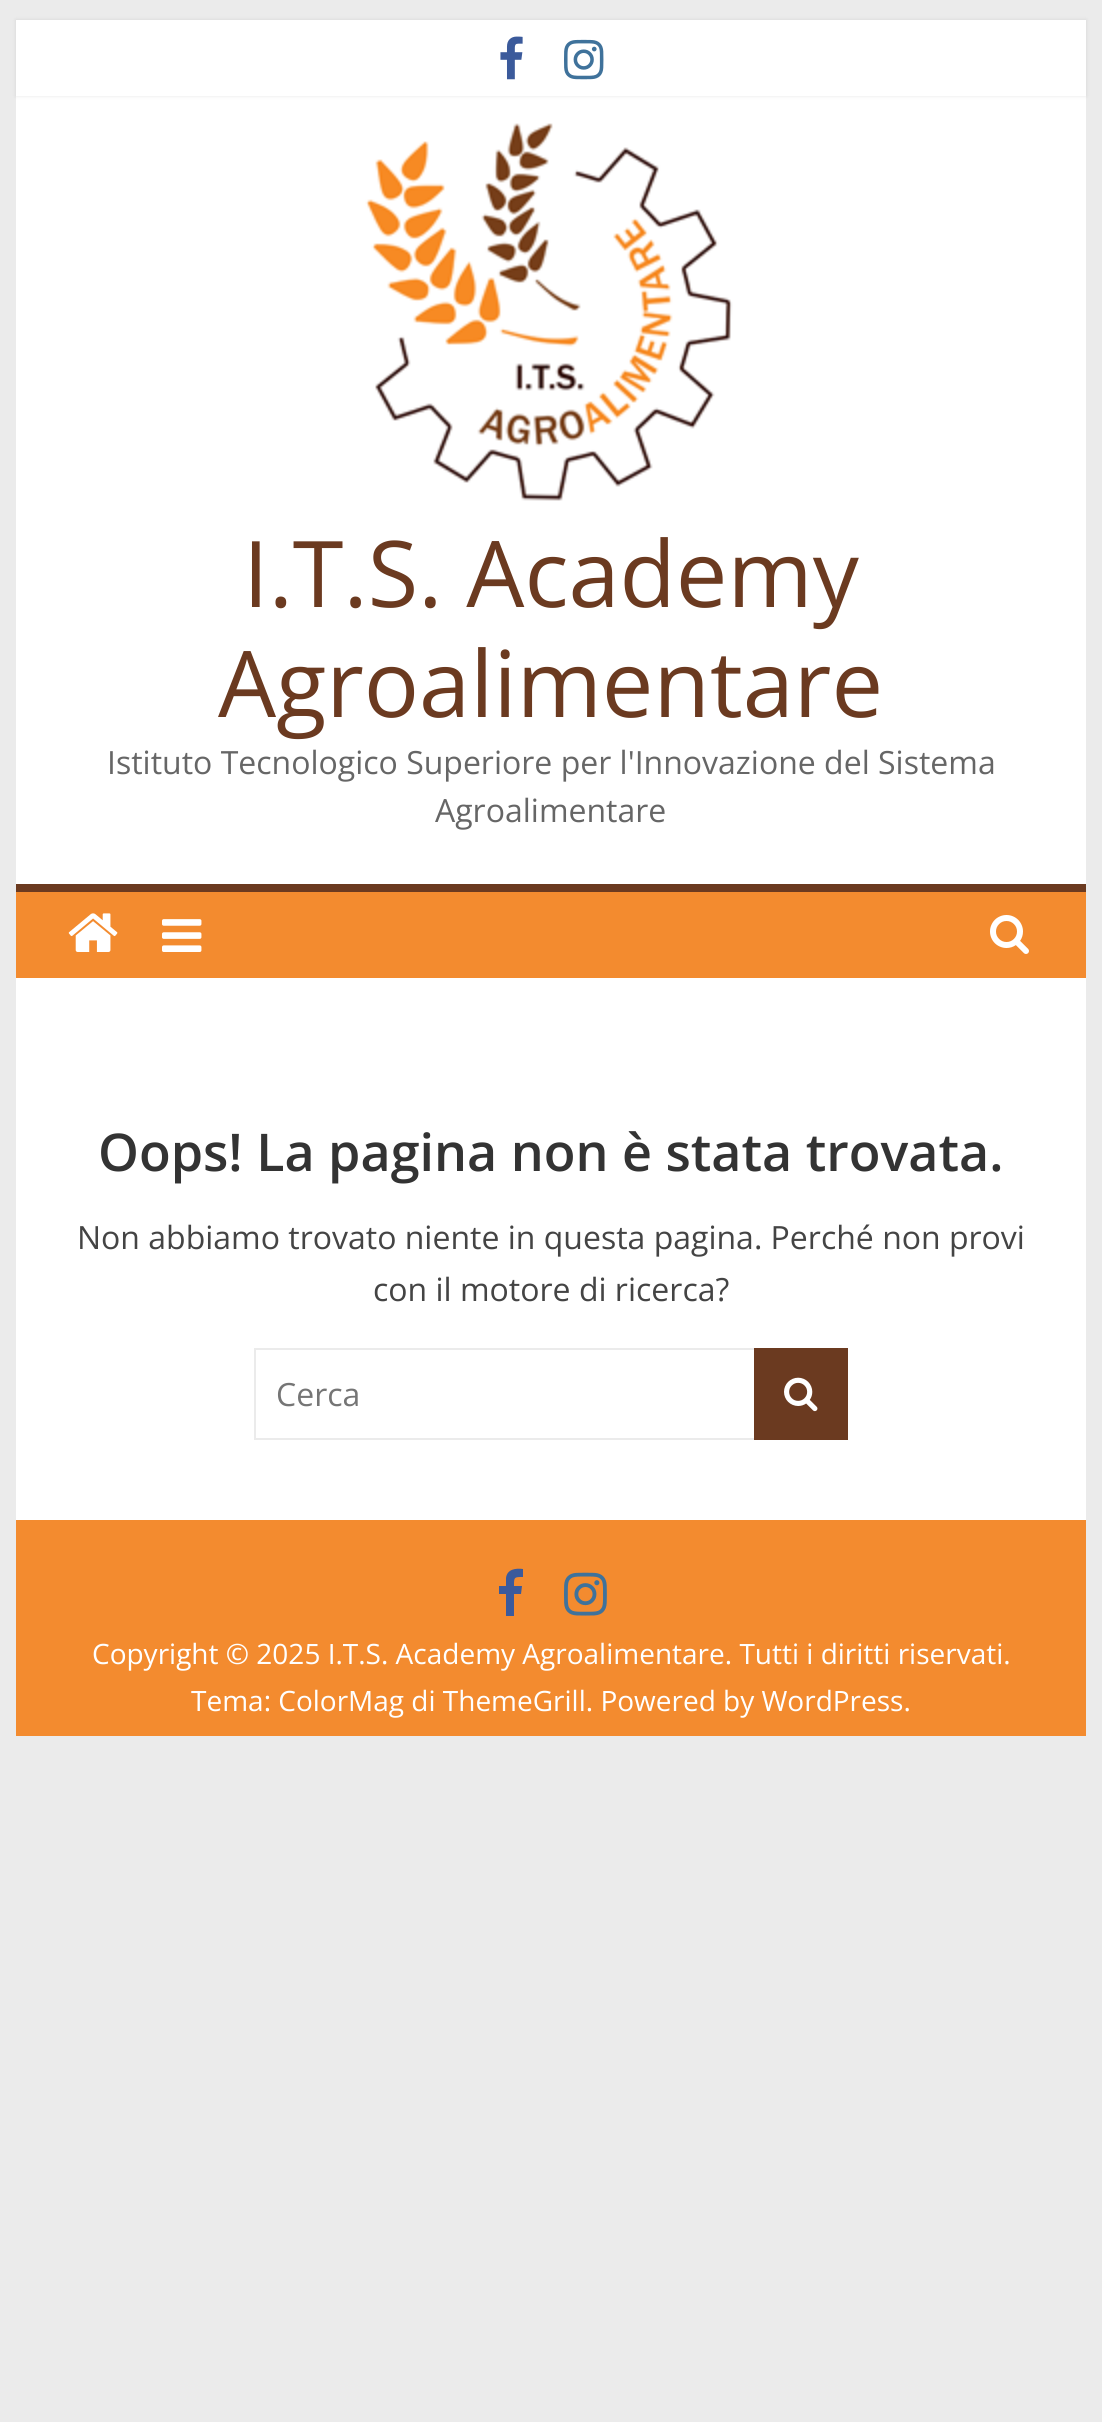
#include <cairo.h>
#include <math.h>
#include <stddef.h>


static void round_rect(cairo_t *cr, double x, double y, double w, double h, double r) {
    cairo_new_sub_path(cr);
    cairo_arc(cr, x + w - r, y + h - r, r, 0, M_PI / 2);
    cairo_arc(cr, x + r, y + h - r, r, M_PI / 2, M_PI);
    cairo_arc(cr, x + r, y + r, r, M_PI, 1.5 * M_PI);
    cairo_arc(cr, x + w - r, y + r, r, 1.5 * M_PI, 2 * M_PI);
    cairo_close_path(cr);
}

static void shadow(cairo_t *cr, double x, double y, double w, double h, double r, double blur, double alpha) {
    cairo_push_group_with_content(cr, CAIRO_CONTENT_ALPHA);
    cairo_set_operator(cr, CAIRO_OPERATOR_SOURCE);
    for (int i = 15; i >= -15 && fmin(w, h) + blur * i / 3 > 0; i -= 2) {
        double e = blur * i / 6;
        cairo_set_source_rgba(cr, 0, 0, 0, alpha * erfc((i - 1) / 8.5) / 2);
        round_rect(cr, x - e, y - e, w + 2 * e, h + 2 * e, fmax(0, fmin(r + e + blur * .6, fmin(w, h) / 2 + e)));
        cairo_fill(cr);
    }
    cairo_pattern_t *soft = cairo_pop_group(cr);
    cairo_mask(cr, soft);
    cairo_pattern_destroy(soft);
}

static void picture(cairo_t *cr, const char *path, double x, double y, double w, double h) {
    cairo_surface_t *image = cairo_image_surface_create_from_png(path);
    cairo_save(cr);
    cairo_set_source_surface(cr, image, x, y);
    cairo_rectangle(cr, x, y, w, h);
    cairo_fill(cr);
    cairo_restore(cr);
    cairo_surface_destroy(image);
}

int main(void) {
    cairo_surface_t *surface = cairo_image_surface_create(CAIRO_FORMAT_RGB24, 1102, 2422);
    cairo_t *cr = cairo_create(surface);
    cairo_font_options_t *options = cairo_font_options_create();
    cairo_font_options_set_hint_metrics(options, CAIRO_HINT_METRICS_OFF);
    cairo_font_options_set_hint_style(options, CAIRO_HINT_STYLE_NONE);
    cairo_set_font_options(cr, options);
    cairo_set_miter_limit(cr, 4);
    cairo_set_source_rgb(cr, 0.918, 0.918, 0.918);
    cairo_paint(cr);
    cairo_set_source_rgb(cr, 1, 1, 1);
    cairo_rectangle(cr, 16, 20, 1070, 1500);
    cairo_fill(cr);
    cairo_save(cr);
    cairo_set_fill_rule(cr, CAIRO_FILL_RULE_EVEN_ODD);
    cairo_new_path(cr);
    cairo_move_to(cr, 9, 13);
    cairo_line_to(cr, 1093, 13);
    cairo_line_to(cr, 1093, 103);
    cairo_line_to(cr, 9, 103);
    cairo_close_path(cr);
    cairo_move_to(cr, 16, 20);
    cairo_line_to(cr, 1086, 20);
    cairo_line_to(cr, 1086, 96);
    cairo_line_to(cr, 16, 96);
    cairo_close_path(cr);
    cairo_clip(cr);
    cairo_set_source_rgb(cr, 0, 0, 0);
    shadow(cr, 16, 20, 1070, 76, 0, 2, 0.1);
    cairo_restore(cr);
    picture(cr, "img1.png", 500, 36, 23, 44);
    picture(cr, "img2.png", 564, 39, 40, 41);
    picture(cr, "img3.png", 365, 123, 368, 378);
    cairo_select_font_face(cr, "Open Sans", CAIRO_FONT_SLANT_NORMAL, CAIRO_FONT_WEIGHT_NORMAL);
    cairo_set_font_size(cr, 92);
    cairo_set_source_rgb(cr, 0.42, 0.227, 0.125);
    cairo_move_to(cr, 243, 607);
    cairo_show_text(cr, "I.T.S. Academy");
    cairo_move_to(cr, 218, 717);
    cairo_show_text(cr, "Agroalimentare");
    cairo_set_font_size(cr, 32);
    cairo_set_source_rgb(cr, 0.4, 0.4, 0.4);
    cairo_move_to(cr, 107, 774);
    cairo_show_text(cr, "Istituto Tecnologico Superiore per l'Innovazione del Sistema");
    cairo_move_to(cr, 435, 822);
    cairo_show_text(cr, "Agroalimentare");
    cairo_set_source_rgb(cr, 0.953, 0.545, 0.184);
    cairo_rectangle(cr, 16, 892, 1070, 86);
    cairo_fill(cr);
    cairo_set_source_rgb(cr, 0.42, 0.227, 0.125);
    cairo_rectangle(cr, 16, 884, 1070, 8);
    cairo_fill(cr);
    picture(cr, "img4.png", 68, 913, 50, 39);
    picture(cr, "img5.png", 162, 919, 40, 33);
    picture(cr, "img6.png", 990, 915, 39, 39);
    cairo_select_font_face(cr, "Open Sans SemiBold", CAIRO_FONT_SLANT_NORMAL, CAIRO_FONT_WEIGHT_NORMAL);
    cairo_set_font_size(cr, 52);
    cairo_set_source_rgb(cr, 0.2, 0.2, 0.2);
    cairo_move_to(cr, 98, 1171);
    cairo_show_text(cr, "Oops! La pagina non è stata trovata.");
    cairo_select_font_face(cr, "Open Sans", CAIRO_FONT_SLANT_NORMAL, CAIRO_FONT_WEIGHT_NORMAL);
    cairo_set_font_size(cr, 32);
    cairo_set_source_rgb(cr, 0.267, 0.267, 0.267);
    cairo_move_to(cr, 77, 1249);
    cairo_show_text(cr, "Non abbiamo trovato niente in questa pagina. Perché non provi");
    cairo_move_to(cr, 373, 1301);
    cairo_show_text(cr, "con il motore di ricerca?");
    cairo_rectangle(cr, 255, 1349, 500, 90);
    cairo_set_source_rgb(cr, 0.918, 0.918, 0.918);
    cairo_stroke(cr);
    cairo_set_source_rgb(cr, 0.459, 0.459, 0.459);
    cairo_move_to(cr, 276, 1406);
    cairo_show_text(cr, "Cerca");
    cairo_set_source_rgb(cr, 0.42, 0.227, 0.125);
    cairo_rectangle(cr, 754, 1348, 94, 92);
    cairo_fill(cr);
    picture(cr, "img7.png", 784, 1377, 34, 35);
    cairo_set_source_rgb(cr, 0.953, 0.545, 0.184);
    cairo_rectangle(cr, 16, 1520, 1070, 216);
    cairo_fill(cr);
    cairo_set_source_rgb(cr, 0.231, 0.353, 0.608);
    cairo_new_path(cr);
    cairo_move_to(cr, 523, 1569);
    cairo_line_to(cr, 523, 1577);
    cairo_curve_to(cr, 514, 1577, 514, 1577, 514, 1586);
    cairo_line_to(cr, 522, 1586);
    cairo_line_to(cr, 521, 1594);
    cairo_line_to(cr, 514, 1594);
    cairo_line_to(cr, 514, 1616);
    cairo_line_to(cr, 506, 1616);
    cairo_line_to(cr, 506, 1594);
    cairo_line_to(cr, 499, 1594);
    cairo_line_to(cr, 499, 1586);
    cairo_line_to(cr, 506, 1586);
    cairo_line_to(cr, 506, 1578);
    cairo_curve_to(cr, 507, 1569, 516, 1568, 523, 1569);
    cairo_close_path(cr);
    cairo_fill(cr);
    picture(cr, "img8.png", 564, 1572, 43, 44);
    cairo_set_font_size(cr, 28);
    cairo_set_source_rgb(cr, 1, 1, 1);
    cairo_move_to(cr, 92, 1664);
    cairo_show_text(cr, "Copyright © 2025 I.T.S. Academy Agroalimentare. Tutti i diritti riservati.");
    cairo_move_to(cr, 191, 1711);
    cairo_show_text(cr, "Tema: ColorMag di ThemeGrill. Powered by WordPress.");
    cairo_surface_write_to_png(surface, "page.png");
    cairo_font_options_destroy(options);
    cairo_destroy(cr);
    cairo_surface_destroy(surface);
    return 0;
}
